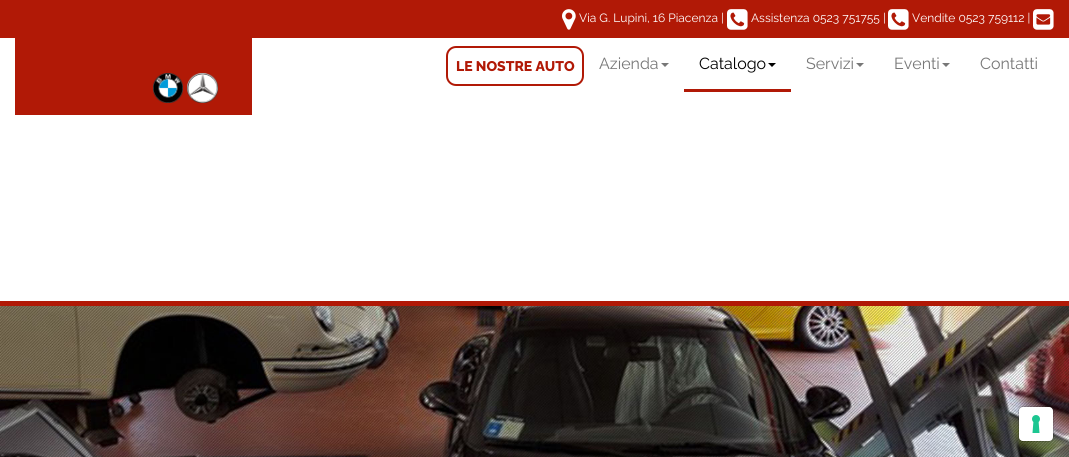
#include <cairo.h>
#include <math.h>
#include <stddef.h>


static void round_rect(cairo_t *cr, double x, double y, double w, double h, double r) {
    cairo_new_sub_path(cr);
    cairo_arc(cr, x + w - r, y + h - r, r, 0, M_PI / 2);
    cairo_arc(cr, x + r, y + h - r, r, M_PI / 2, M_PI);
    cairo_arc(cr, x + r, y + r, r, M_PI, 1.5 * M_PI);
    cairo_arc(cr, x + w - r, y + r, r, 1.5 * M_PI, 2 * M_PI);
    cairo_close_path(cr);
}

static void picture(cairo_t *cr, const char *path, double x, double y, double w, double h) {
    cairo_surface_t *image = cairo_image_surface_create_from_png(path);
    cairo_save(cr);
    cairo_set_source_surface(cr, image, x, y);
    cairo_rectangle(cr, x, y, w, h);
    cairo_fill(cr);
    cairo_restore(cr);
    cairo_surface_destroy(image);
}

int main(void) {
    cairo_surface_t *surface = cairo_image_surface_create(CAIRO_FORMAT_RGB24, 1069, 457);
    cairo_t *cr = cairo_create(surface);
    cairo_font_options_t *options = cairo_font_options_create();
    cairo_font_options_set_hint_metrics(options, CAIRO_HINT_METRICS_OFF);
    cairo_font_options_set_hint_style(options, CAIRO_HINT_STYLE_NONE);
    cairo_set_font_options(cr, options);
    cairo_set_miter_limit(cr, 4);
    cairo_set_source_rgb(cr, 1, 1, 1);
    cairo_paint(cr);
    cairo_set_source_rgb(cr, 0.694, 0.098, 0.027);
    cairo_rectangle(cr, 0, 0, 1069, 38);
    cairo_fill(cr);
    picture(cr, "img1.png", 562, 9, 14, 21);
    cairo_select_font_face(cr, "Raleway", CAIRO_FONT_SLANT_NORMAL, CAIRO_FONT_WEIGHT_NORMAL);
    cairo_set_font_size(cr, 12);
    cairo_set_source_rgb(cr, 1, 1, 1);
    cairo_move_to(cr, 579, 22);
    cairo_show_text(cr, "Via G. Lupini, 16 Piacenza |");
    picture(cr, "img2.png", 727, 9, 21, 21);
    cairo_move_to(cr, 751, 22);
    cairo_show_text(cr, "Assistenza 0523 751755 |");
    picture(cr, "img2.png", 888, 9, 21, 21);
    cairo_move_to(cr, 912, 22);
    cairo_show_text(cr, "Vendite 0523 759112 |");
    picture(cr, "img3.png", 1033, 9, 21, 21);
    cairo_set_source_rgb(cr, 0.694, 0.098, 0.027);
    cairo_rectangle(cr, 15, 38, 237, 77);
    cairo_fill(cr);
    picture(cr, "img4.png", 153, 73, 30, 30);
    picture(cr, "img5.png", 187, 73, 31, 30);
    round_rect(cr, 447, 47, 136, 38, 9);
    cairo_stroke(cr);
    cairo_select_font_face(cr, "Raleway ExtraBold", CAIRO_FONT_SLANT_NORMAL, CAIRO_FONT_WEIGHT_NORMAL);
    cairo_set_font_size(cr, 14);
    cairo_move_to(cr, 456, 71);
    cairo_show_text(cr, "LE NOSTRE AUTO");
    cairo_select_font_face(cr, "Raleway", CAIRO_FONT_SLANT_NORMAL, CAIRO_FONT_WEIGHT_NORMAL);
    cairo_set_font_size(cr, 16);
    cairo_set_source_rgb(cr, 0.467, 0.467, 0.467);
    cairo_move_to(cr, 599, 69);
    cairo_show_text(cr, "Azienda");
    cairo_new_path(cr);
    cairo_move_to(cr, 661, 63);
    cairo_line_to(cr, 669, 63);
    cairo_line_to(cr, 665, 67);
    cairo_close_path(cr);
    cairo_fill(cr);
    cairo_set_source_rgb(cr, 0.694, 0.098, 0.027);
    cairo_rectangle(cr, 684, 89, 107, 3);
    cairo_fill(cr);
    cairo_set_source_rgb(cr, 0, 0, 0);
    cairo_move_to(cr, 699, 69);
    cairo_show_text(cr, "Catalogo");
    cairo_new_path(cr);
    cairo_move_to(cr, 768, 63);
    cairo_line_to(cr, 776, 63);
    cairo_line_to(cr, 772, 67);
    cairo_close_path(cr);
    cairo_fill(cr);
    cairo_set_source_rgb(cr, 0.467, 0.467, 0.467);
    cairo_move_to(cr, 806, 69);
    cairo_show_text(cr, "Servizi");
    cairo_new_path(cr);
    cairo_move_to(cr, 856, 63);
    cairo_line_to(cr, 864, 63);
    cairo_line_to(cr, 860, 67);
    cairo_close_path(cr);
    cairo_fill(cr);
    cairo_move_to(cr, 894, 69);
    cairo_show_text(cr, "Eventi");
    cairo_new_path(cr);
    cairo_move_to(cr, 942, 63);
    cairo_line_to(cr, 950, 63);
    cairo_line_to(cr, 946, 67);
    cairo_close_path(cr);
    cairo_fill(cr);
    cairo_move_to(cr, 980, 69);
    cairo_show_text(cr, "Contatti");
    picture(cr, "img6.png", 0, 306, 1069, 151);
    cairo_set_source_rgb(cr, 0.694, 0.098, 0.027);
    cairo_rectangle(cr, 0, 301, 1069, 5);
    cairo_fill(cr);
    round_rect(cr, 1018.5, 406.5, 35, 35, 4.5);
    cairo_set_source_rgba(cr, 0, 0, 0, 0.15);
    cairo_set_line_width(cr, 1);
    cairo_stroke(cr);
    cairo_set_source_rgb(cr, 1, 1, 1);
    round_rect(cr, 1019, 407, 34, 34, 4);
    cairo_fill(cr);
    picture(cr, "img7.png", 1032, 415, 8, 18);
    cairo_surface_write_to_png(surface, "page.png");
    cairo_font_options_destroy(options);
    cairo_destroy(cr);
    cairo_surface_destroy(surface);
    return 0;
}
